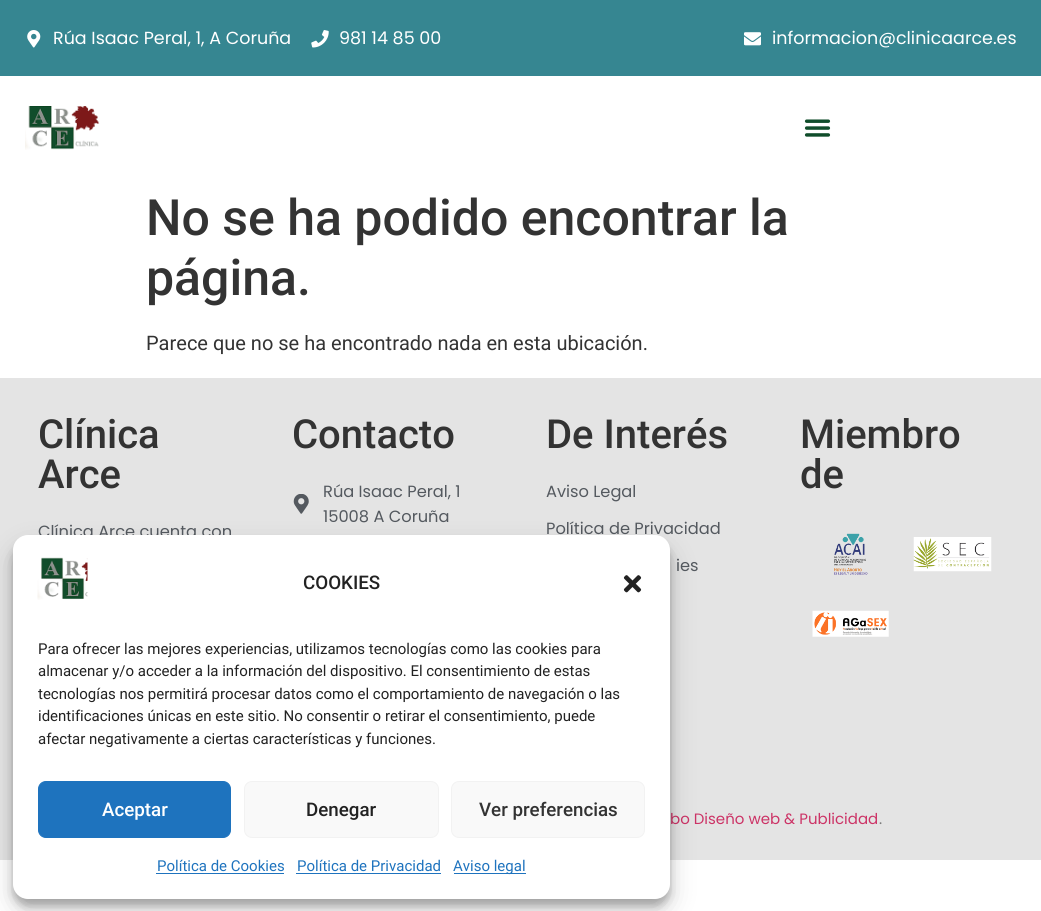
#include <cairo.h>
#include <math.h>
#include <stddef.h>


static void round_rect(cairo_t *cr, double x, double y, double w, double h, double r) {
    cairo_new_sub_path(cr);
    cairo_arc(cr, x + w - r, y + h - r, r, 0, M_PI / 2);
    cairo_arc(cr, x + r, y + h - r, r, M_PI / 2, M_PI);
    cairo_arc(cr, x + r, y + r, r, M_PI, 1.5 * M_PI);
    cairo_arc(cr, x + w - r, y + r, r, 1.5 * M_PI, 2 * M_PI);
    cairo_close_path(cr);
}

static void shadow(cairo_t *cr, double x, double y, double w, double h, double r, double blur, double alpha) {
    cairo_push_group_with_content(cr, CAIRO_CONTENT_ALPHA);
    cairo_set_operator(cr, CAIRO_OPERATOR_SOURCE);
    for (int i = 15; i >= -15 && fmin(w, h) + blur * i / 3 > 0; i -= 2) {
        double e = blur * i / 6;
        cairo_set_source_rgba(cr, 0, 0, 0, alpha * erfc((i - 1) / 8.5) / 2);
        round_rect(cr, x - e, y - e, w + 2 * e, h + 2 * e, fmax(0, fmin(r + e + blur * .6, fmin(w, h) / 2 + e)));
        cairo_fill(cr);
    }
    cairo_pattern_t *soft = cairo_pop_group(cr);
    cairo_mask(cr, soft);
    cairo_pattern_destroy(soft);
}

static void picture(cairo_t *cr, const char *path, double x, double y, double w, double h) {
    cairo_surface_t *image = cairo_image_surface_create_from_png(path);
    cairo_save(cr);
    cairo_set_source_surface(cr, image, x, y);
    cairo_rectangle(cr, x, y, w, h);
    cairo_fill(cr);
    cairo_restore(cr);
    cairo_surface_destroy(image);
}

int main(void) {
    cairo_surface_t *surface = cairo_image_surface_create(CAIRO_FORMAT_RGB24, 1041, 911);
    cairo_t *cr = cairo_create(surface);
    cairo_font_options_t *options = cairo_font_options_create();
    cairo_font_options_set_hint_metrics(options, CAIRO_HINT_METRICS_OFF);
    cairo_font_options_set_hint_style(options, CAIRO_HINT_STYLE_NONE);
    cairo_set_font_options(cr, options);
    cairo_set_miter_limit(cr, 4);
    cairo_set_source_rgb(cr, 1, 1, 1);
    cairo_paint(cr);
    cairo_set_source_rgb(cr, 0.212, 0.525, 0.569);
    cairo_rectangle(cr, 0, 0, 1041, 76);
    cairo_fill(cr);
    picture(cr, "img1.png", 27, 30, 14, 18);
    cairo_select_font_face(cr, "Poppins", CAIRO_FONT_SLANT_NORMAL, CAIRO_FONT_WEIGHT_NORMAL);
    cairo_set_font_size(cr, 17.5);
    cairo_set_source_rgb(cr, 1, 1, 1);
    cairo_move_to(cr, 53, 44);
    cairo_show_text(cr, "Rúa Isaac Peral, 1, A Coruña");
    picture(cr, "img2.png", 311, 30, 18, 18);
    cairo_move_to(cr, 339, 44);
    cairo_show_text(cr, "981 14 85 00");
    picture(cr, "img3.png", 744, 32, 17, 14);
    cairo_move_to(cr, 772, 44);
    cairo_show_text(cr, "informacion@clinicaarce.es");
    picture(cr, "img4.png", 25, 106, 75, 44);
    picture(cr, "img5.png", 804, 119, 27, 18);
    cairo_select_font_face(cr, "Roboto Medium", CAIRO_FONT_SLANT_NORMAL, CAIRO_FONT_WEIGHT_NORMAL);
    cairo_set_font_size(cr, 50);
    cairo_set_source_rgb(cr, 0.2, 0.2, 0.2);
    cairo_move_to(cr, 146, 235);
    cairo_show_text(cr, "No se ha podido encontrar la");
    cairo_move_to(cr, 146, 295);
    cairo_show_text(cr, "página.");
    cairo_select_font_face(cr, "Roboto", CAIRO_FONT_SLANT_NORMAL, CAIRO_FONT_WEIGHT_NORMAL);
    cairo_set_font_size(cr, 20);
    cairo_move_to(cr, 146, 350);
    cairo_show_text(cr, "Parece que no se ha encontrado nada en esta ubicación.");
    cairo_set_source_rgb(cr, 0.894, 0.894, 0.894);
    cairo_rectangle(cr, 0, 378, 1041, 482);
    cairo_fill(cr);
    cairo_select_font_face(cr, "Roboto Medium", CAIRO_FONT_SLANT_NORMAL, CAIRO_FONT_WEIGHT_NORMAL);
    cairo_set_font_size(cr, 40);
    cairo_set_source_rgb(cr, 0.2, 0.2, 0.2);
    cairo_move_to(cr, 38, 448);
    cairo_show_text(cr, "Clínica");
    cairo_move_to(cr, 38, 488);
    cairo_show_text(cr, "Arce");
    cairo_select_font_face(cr, "Poppins", CAIRO_FONT_SLANT_NORMAL, CAIRO_FONT_WEIGHT_NORMAL);
    cairo_set_font_size(cr, 16.25);
    cairo_set_source_rgb(cr, 0.329, 0.349, 0.373);
    cairo_move_to(cr, 38, 537);
    cairo_show_text(cr, "Clínica Arce cuenta con");
    cairo_select_font_face(cr, "Roboto Medium", CAIRO_FONT_SLANT_NORMAL, CAIRO_FONT_WEIGHT_NORMAL);
    cairo_set_font_size(cr, 40);
    cairo_set_source_rgb(cr, 0.2, 0.2, 0.2);
    cairo_move_to(cr, 292, 448);
    cairo_show_text(cr, "Contacto");
    picture(cr, "img6.png", 293, 494, 16, 20);
    cairo_select_font_face(cr, "Poppins", CAIRO_FONT_SLANT_NORMAL, CAIRO_FONT_WEIGHT_NORMAL);
    cairo_set_font_size(cr, 16.25);
    cairo_set_source_rgb(cr, 0.329, 0.349, 0.373);
    cairo_move_to(cr, 323, 497);
    cairo_show_text(cr, "Rúa Isaac Peral, 1");
    cairo_move_to(cr, 323, 522);
    cairo_show_text(cr, "15008 A Coruña");
    cairo_select_font_face(cr, "Roboto Medium", CAIRO_FONT_SLANT_NORMAL, CAIRO_FONT_WEIGHT_NORMAL);
    cairo_set_font_size(cr, 40);
    cairo_set_source_rgb(cr, 0.2, 0.2, 0.2);
    cairo_move_to(cr, 546, 448);
    cairo_show_text(cr, "De Interés");
    cairo_select_font_face(cr, "Poppins", CAIRO_FONT_SLANT_NORMAL, CAIRO_FONT_WEIGHT_NORMAL);
    cairo_set_font_size(cr, 16.25);
    cairo_set_source_rgb(cr, 0.329, 0.349, 0.373);
    cairo_move_to(cr, 546, 497);
    cairo_show_text(cr, "Aviso Legal");
    cairo_move_to(cr, 546, 534);
    cairo_show_text(cr, "Política de Privacidad");
    cairo_move_to(cr, 676, 571);
    cairo_show_text(cr, "ies");
    cairo_select_font_face(cr, "Roboto Medium", CAIRO_FONT_SLANT_NORMAL, CAIRO_FONT_WEIGHT_NORMAL);
    cairo_set_font_size(cr, 40);
    cairo_set_source_rgb(cr, 0.2, 0.2, 0.2);
    cairo_move_to(cr, 800, 448);
    cairo_show_text(cr, "Miembro");
    cairo_move_to(cr, 800, 488);
    cairo_show_text(cr, "de");
    picture(cr, "img7.png", 834, 533, 34, 42);
    picture(cr, "img8.png", 913, 537, 79, 35);
    picture(cr, "img9.png", 812, 610, 77, 27);
    cairo_select_font_face(cr, "Poppins", CAIRO_FONT_SLANT_NORMAL, CAIRO_FONT_WEIGHT_NORMAL);
    cairo_set_font_size(cr, 15);
    cairo_set_source_rgb(cr, 0.8, 0.2, 0.4);
    cairo_move_to(cr, 670, 824);
    cairo_show_text(cr, "bo Diseño web & Publicidad");
    cairo_set_source_rgb(cr, 0.478, 0.478, 0.478);
    cairo_move_to(cr, 879, 824);
    cairo_show_text(cr, ".");
    cairo_set_source_rgb(cr, 0, 0, 0);
    shadow(cr, 13, 543, 657, 363, 15, 4, 0.23);
    shadow(cr, 13, 548, 657, 363, 15, 12.5, 0.19);
    cairo_set_source_rgb(cr, 1, 1, 1);
    round_rect(cr, 13, 535, 657, 364, 15);
    cairo_fill(cr);
    picture(cr, "img10.png", 37, 557, 51, 43);
    cairo_select_font_face(cr, "Roboto Medium", CAIRO_FONT_SLANT_NORMAL, CAIRO_FONT_WEIGHT_NORMAL);
    cairo_set_font_size(cr, 18.75);
    cairo_set_source_rgb(cr, 0.133, 0.133, 0.133);
    cairo_move_to(cr, 303, 589);
    cairo_show_text(cr, "COOKIES");
    picture(cr, "img11.png", 623, 575, 19, 18);
    cairo_select_font_face(cr, "Roboto", CAIRO_FONT_SLANT_NORMAL, CAIRO_FONT_WEIGHT_NORMAL);
    cairo_set_font_size(cr, 15);
    cairo_move_to(cr, 38, 654);
    cairo_show_text(cr, "Para ofrecer las mejores experiencias, utilizamos tecnologías como las cookies para");
    cairo_move_to(cr, 38, 676);
    cairo_show_text(cr, "almacenar y/o acceder a la información del dispositivo. El consentimiento de estas");
    cairo_move_to(cr, 38, 699);
    cairo_show_text(cr, "tecnologías nos permitirá procesar datos como el comportamiento de navegación o las");
    cairo_move_to(cr, 38, 721);
    cairo_show_text(cr, "identificaciones únicas en este sitio. No consentir o retirar el consentimiento, puede");
    cairo_move_to(cr, 38, 744);
    cairo_show_text(cr, "afectar negativamente a ciertas características y funciones.");
    cairo_set_source_rgb(cr, 0.118, 0.451, 0.745);
    round_rect(cr, 38.5, 781.5, 192, 56, 7.5);
    cairo_fill_preserve(cr);
    cairo_set_line_width(cr, 1);
    cairo_stroke(cr);
    cairo_select_font_face(cr, "Roboto Medium", CAIRO_FONT_SLANT_NORMAL, CAIRO_FONT_WEIGHT_NORMAL);
    cairo_set_font_size(cr, 18.75);
    cairo_set_source_rgb(cr, 1, 1, 1);
    cairo_move_to(cr, 102, 816);
    cairo_show_text(cr, "Aceptar");
    cairo_set_source_rgb(cr, 0.976, 0.976, 0.976);
    round_rect(cr, 244.5, 781.5, 194, 56, 7.5);
    cairo_fill_preserve(cr);
    cairo_set_source_rgb(cr, 0.949, 0.949, 0.949);
    cairo_stroke(cr);
    cairo_set_source_rgb(cr, 0.133, 0.133, 0.133);
    cairo_move_to(cr, 306, 816);
    cairo_show_text(cr, "Denegar");
    cairo_set_source_rgb(cr, 0.976, 0.976, 0.976);
    round_rect(cr, 451.5, 781.5, 193, 56, 7.5);
    cairo_fill_preserve(cr);
    cairo_set_source_rgb(cr, 0.949, 0.949, 0.949);
    cairo_stroke(cr);
    cairo_set_source_rgb(cr, 0.2, 0.2, 0.2);
    cairo_move_to(cr, 479, 816);
    cairo_show_text(cr, "Ver preferencias");
    cairo_select_font_face(cr, "Roboto", CAIRO_FONT_SLANT_NORMAL, CAIRO_FONT_WEIGHT_NORMAL);
    cairo_set_font_size(cr, 15);
    cairo_set_source_rgb(cr, 0.118, 0.451, 0.745);
    cairo_move_to(cr, 157, 871);
    cairo_show_text(cr, "Política de Cookies");
    cairo_rectangle(cr, 156, 873, 128, 1);
    cairo_fill(cr);
    cairo_move_to(cr, 297, 871);
    cairo_show_text(cr, "Política de Privacidad");
    cairo_rectangle(cr, 296, 873, 145, 1);
    cairo_fill(cr);
    cairo_rectangle(cr, 454, 873, 72, 1);
    cairo_fill(cr);
    cairo_move_to(cr, 453, 871);
    cairo_show_text(cr, "Aviso legal");
    cairo_surface_write_to_png(surface, "page.png");
    cairo_font_options_destroy(options);
    cairo_destroy(cr);
    cairo_surface_destroy(surface);
    return 0;
}
